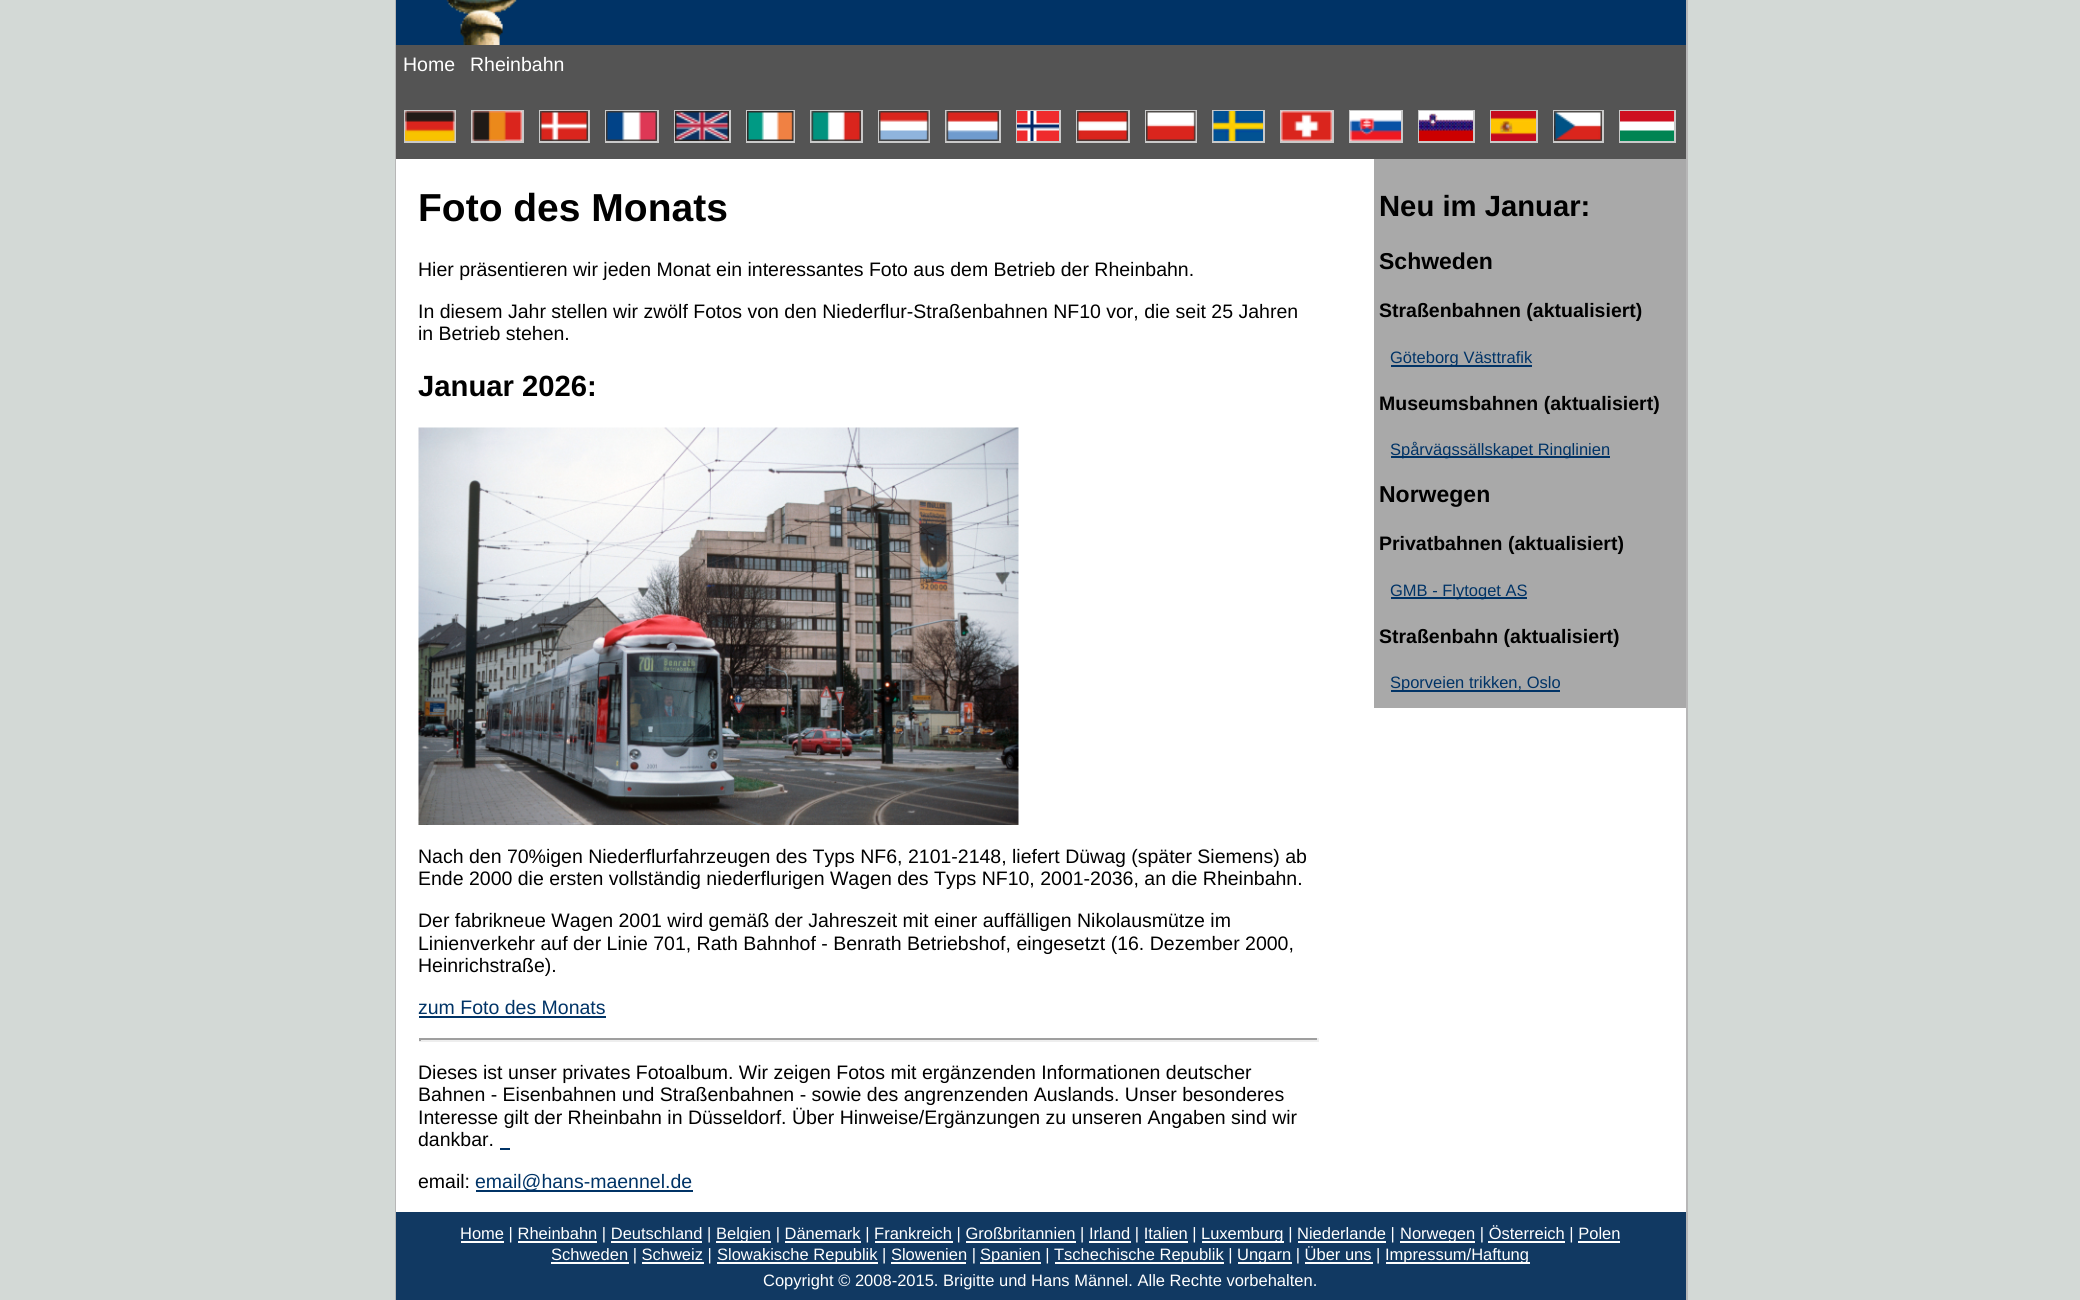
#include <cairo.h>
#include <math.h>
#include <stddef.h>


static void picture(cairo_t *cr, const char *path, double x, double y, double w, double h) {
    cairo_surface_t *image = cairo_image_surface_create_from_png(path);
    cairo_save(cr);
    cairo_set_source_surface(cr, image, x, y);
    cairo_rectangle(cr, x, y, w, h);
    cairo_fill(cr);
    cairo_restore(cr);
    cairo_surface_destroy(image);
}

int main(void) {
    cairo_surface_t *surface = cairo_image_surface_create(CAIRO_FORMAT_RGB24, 2080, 1300);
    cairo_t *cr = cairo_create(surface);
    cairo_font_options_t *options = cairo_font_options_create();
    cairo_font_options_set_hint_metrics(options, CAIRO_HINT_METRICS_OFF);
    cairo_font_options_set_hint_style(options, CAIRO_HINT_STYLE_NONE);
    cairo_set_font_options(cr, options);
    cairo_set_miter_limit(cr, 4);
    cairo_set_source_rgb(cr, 0.827, 0.851, 0.839);
    cairo_paint(cr);
    cairo_set_source_rgb(cr, 1, 1, 1);
    cairo_rectangle(cr, 396, 159, 1290, 1053);
    cairo_fill(cr);
    cairo_set_source_rgb(cr, 0.718, 0.718, 0.718);
    cairo_rectangle(cr, 1686, 0, 2, 1300);
    cairo_fill(cr);
    cairo_rectangle(cr, 395, 0, 1, 1300);
    cairo_fill(cr);
    cairo_set_source_rgb(cr, 0, 0.2, 0.4);
    cairo_rectangle(cr, 396, 0, 1290, 45);
    cairo_fill(cr);
    picture(cr, "img1.png", 446, 0, 71, 45);
    cairo_set_source_rgb(cr, 0.329, 0.329, 0.329);
    cairo_rectangle(cr, 396, 45, 1290, 114);
    cairo_fill(cr);
    cairo_select_font_face(cr, "Liberation Sans", CAIRO_FONT_SLANT_NORMAL, CAIRO_FONT_WEIGHT_NORMAL);
    cairo_set_font_size(cr, 19.5);
    cairo_set_source_rgb(cr, 1, 1, 1);
    cairo_move_to(cr, 403, 71);
    cairo_show_text(cr, "Home");
    cairo_move_to(cr, 470, 71);
    cairo_show_text(cr, "Rheinbahn");
    cairo_rectangle(cr, 405, 111, 50, 31);
    cairo_set_source_rgb(cr, 0.788, 0.788, 0.788);
    cairo_stroke(cr);
    picture(cr, "img2.png", 405, 111, 50, 30);
    cairo_rectangle(cr, 472, 111, 51, 31);
    cairo_stroke(cr);
    picture(cr, "img3.png", 472, 111, 50, 30);
    cairo_rectangle(cr, 540, 111, 49, 31);
    cairo_stroke(cr);
    picture(cr, "img4.png", 540, 111, 48, 30);
    cairo_rectangle(cr, 606, 111, 52, 31);
    cairo_stroke(cr);
    picture(cr, "img5.png", 606, 111, 51, 30);
    cairo_rectangle(cr, 675, 111, 55, 31);
    cairo_stroke(cr);
    picture(cr, "img6.png", 675, 111, 54, 30);
    cairo_rectangle(cr, 747, 111, 47, 31);
    cairo_stroke(cr);
    picture(cr, "img7.png", 747, 111, 47, 30);
    cairo_rectangle(cr, 811, 111, 51, 31);
    cairo_stroke(cr);
    picture(cr, "img8.png", 811, 111, 50, 30);
    cairo_rectangle(cr, 879, 111, 50, 31);
    cairo_stroke(cr);
    picture(cr, "img9.png", 879, 111, 50, 30);
    cairo_rectangle(cr, 946, 111, 54, 31);
    cairo_stroke(cr);
    picture(cr, "img10.png", 946, 111, 53, 30);
    cairo_rectangle(cr, 1017, 111, 43, 31);
    cairo_stroke(cr);
    picture(cr, "img11.png", 1017, 111, 42, 30);
    cairo_rectangle(cr, 1077, 111, 52, 31);
    cairo_stroke(cr);
    picture(cr, "img12.png", 1077, 111, 51, 30);
    cairo_rectangle(cr, 1146, 111, 50, 31);
    cairo_stroke(cr);
    picture(cr, "img13.png", 1146, 111, 50, 30);
    cairo_rectangle(cr, 1213, 111, 51, 31);
    cairo_stroke(cr);
    picture(cr, "img14.png", 1213, 111, 50, 30);
    cairo_rectangle(cr, 1281, 111, 52, 31);
    cairo_stroke(cr);
    picture(cr, "img15.png", 1281, 111, 51, 30);
    cairo_rectangle(cr, 1350, 111, 52, 31);
    cairo_stroke(cr);
    picture(cr, "img16.png", 1350, 111, 51, 30);
    cairo_rectangle(cr, 1419, 111, 55, 31);
    cairo_stroke(cr);
    picture(cr, "img17.png", 1419, 111, 54, 30);
    cairo_rectangle(cr, 1491, 111, 46, 31);
    cairo_stroke(cr);
    picture(cr, "img18.png", 1491, 111, 45, 30);
    cairo_rectangle(cr, 1554, 111, 49, 31);
    cairo_stroke(cr);
    picture(cr, "img19.png", 1554, 111, 48, 30);
    cairo_rectangle(cr, 1620, 111, 55, 31);
    cairo_stroke(cr);
    picture(cr, "img20.png", 1620, 111, 54, 30);
    cairo_select_font_face(cr, "Liberation Sans", CAIRO_FONT_SLANT_NORMAL, CAIRO_FONT_WEIGHT_BOLD);
    cairo_set_font_size(cr, 39);
    cairo_set_source_rgb(cr, 0, 0, 0);
    cairo_move_to(cr, 418, 221);
    cairo_show_text(cr, "Foto des Monats");
    cairo_select_font_face(cr, "Liberation Sans", CAIRO_FONT_SLANT_NORMAL, CAIRO_FONT_WEIGHT_NORMAL);
    cairo_set_font_size(cr, 19.5);
    cairo_move_to(cr, 418, 276);
    cairo_show_text(cr, "Hier präsentieren wir jeden Monat ein interessantes Foto aus dem Betrieb der Rheinbahn.");
    cairo_move_to(cr, 418, 318);
    cairo_show_text(cr, "In diesem Jahr stellen wir zwölf Fotos von den Niederflur-Straßenbahnen NF10 vor, die seit 25 Jahren");
    cairo_move_to(cr, 418, 340);
    cairo_show_text(cr, "in Betrieb stehen.");
    cairo_select_font_face(cr, "Liberation Sans", CAIRO_FONT_SLANT_NORMAL, CAIRO_FONT_WEIGHT_BOLD);
    cairo_set_font_size(cr, 29.25);
    cairo_move_to(cr, 418, 396);
    cairo_show_text(cr, "Januar 2026:");
    picture(cr, "img21.png", 418, 427, 601, 398);
    cairo_select_font_face(cr, "Liberation Sans", CAIRO_FONT_SLANT_NORMAL, CAIRO_FONT_WEIGHT_NORMAL);
    cairo_set_font_size(cr, 19.5);
    cairo_move_to(cr, 418, 863);
    cairo_show_text(cr, "Nach den 70%igen Niederflurfahrzeugen des Typs NF6, 2101-2148, liefert Düwag (später Siemens) ab");
    cairo_move_to(cr, 418, 885);
    cairo_show_text(cr, "Ende 2000 die ersten vollständig niederflurigen Wagen des Typs NF10, 2001-2036, an die Rheinbahn.");
    cairo_move_to(cr, 418, 927);
    cairo_show_text(cr, "Der fabrikneue Wagen 2001 wird gemäß der Jahreszeit mit einer auffälligen Nikolausmütze im");
    cairo_move_to(cr, 418, 950);
    cairo_show_text(cr, "Linienverkehr auf der Linie 701, Rath Bahnhof - Benrath Betriebshof, eingesetzt (16. Dezember 2000,");
    cairo_move_to(cr, 418, 972);
    cairo_show_text(cr, "Heinrichstraße).");
    cairo_set_source_rgb(cr, 0, 0.2, 0.4);
    cairo_move_to(cr, 418, 1014);
    cairo_show_text(cr, "zum Foto des Monats");
    cairo_rectangle(cr, 419, 1016, 187, 2);
    cairo_fill(cr);
    cairo_set_source_rgb(cr, 0.624, 0.624, 0.624);
    cairo_rectangle(cr, 419, 1038, 900, 2);
    cairo_fill(cr);
    cairo_set_source_rgb(cr, 0.933, 0.933, 0.933);
    cairo_rectangle(cr, 1317, 1038, 2, 3);
    cairo_fill(cr);
    cairo_rectangle(cr, 419, 1040, 900, 2);
    cairo_fill(cr);
    cairo_set_source_rgb(cr, 0.624, 0.624, 0.624);
    cairo_rectangle(cr, 419, 1038, 2, 3);
    cairo_fill(cr);
    cairo_set_source_rgb(cr, 0, 0, 0);
    cairo_move_to(cr, 418, 1079);
    cairo_show_text(cr, "Dieses ist unser privates Fotoalbum. Wir zeigen Fotos mit ergänzenden Informationen deutscher");
    cairo_move_to(cr, 418, 1101);
    cairo_show_text(cr, "Bahnen - Eisenbahnen und Straßenbahnen - sowie des angrenzenden Auslands. Unser besonderes");
    cairo_move_to(cr, 418, 1124);
    cairo_show_text(cr, "Interesse gilt der Rheinbahn in Düsseldorf. Über Hinweise/Ergänzungen zu unseren Angaben sind wir");
    cairo_move_to(cr, 418, 1146);
    cairo_show_text(cr, "dankbar.");
    cairo_set_source_rgb(cr, 0, 0.2, 0.4);
    cairo_rectangle(cr, 500, 1148, 10, 2);
    cairo_fill(cr);
    cairo_set_source_rgb(cr, 0, 0, 0);
    cairo_move_to(cr, 418, 1188);
    cairo_show_text(cr, "email:");
    cairo_set_source_rgb(cr, 0, 0.2, 0.4);
    cairo_rectangle(cr, 476, 1190, 217, 2);
    cairo_fill(cr);
    cairo_move_to(cr, 475, 1188);
    cairo_show_text(cr, "email@hans-maennel.de");
    cairo_set_source_rgb(cr, 0.663, 0.663, 0.663);
    cairo_rectangle(cr, 1374, 159, 312, 549);
    cairo_fill(cr);
    cairo_select_font_face(cr, "Liberation Sans", CAIRO_FONT_SLANT_NORMAL, CAIRO_FONT_WEIGHT_BOLD);
    cairo_set_font_size(cr, 29.25);
    cairo_set_source_rgb(cr, 0, 0, 0);
    cairo_move_to(cr, 1379, 216);
    cairo_show_text(cr, "Neu im Januar:");
    cairo_set_font_size(cr, 23);
    cairo_move_to(cr, 1379, 269);
    cairo_show_text(cr, "Schweden");
    cairo_set_font_size(cr, 19.5);
    cairo_move_to(cr, 1379, 317);
    cairo_show_text(cr, "Straßenbahnen (aktualisiert)");
    cairo_set_source_rgb(cr, 0, 0.2, 0.4);
    cairo_rectangle(cr, 1391, 365, 141, 2);
    cairo_fill(cr);
    cairo_select_font_face(cr, "Liberation Sans", CAIRO_FONT_SLANT_NORMAL, CAIRO_FONT_WEIGHT_NORMAL);
    cairo_set_font_size(cr, 16.5);
    cairo_move_to(cr, 1390, 363);
    cairo_show_text(cr, "Göteborg Västtrafik");
    cairo_select_font_face(cr, "Liberation Sans", CAIRO_FONT_SLANT_NORMAL, CAIRO_FONT_WEIGHT_BOLD);
    cairo_set_font_size(cr, 19.5);
    cairo_set_source_rgb(cr, 0, 0, 0);
    cairo_move_to(cr, 1379, 410);
    cairo_show_text(cr, "Museumsbahnen (aktualisiert)");
    cairo_set_source_rgb(cr, 0, 0.2, 0.4);
    cairo_rectangle(cr, 1391, 456, 219, 2);
    cairo_fill(cr);
    cairo_select_font_face(cr, "Liberation Sans", CAIRO_FONT_SLANT_NORMAL, CAIRO_FONT_WEIGHT_NORMAL);
    cairo_set_font_size(cr, 16.5);
    cairo_move_to(cr, 1390, 455);
    cairo_show_text(cr, "Spårvägssällskapet Ringlinien");
    cairo_select_font_face(cr, "Liberation Sans", CAIRO_FONT_SLANT_NORMAL, CAIRO_FONT_WEIGHT_BOLD);
    cairo_set_font_size(cr, 23);
    cairo_set_source_rgb(cr, 0, 0, 0);
    cairo_move_to(cr, 1379, 502);
    cairo_show_text(cr, "Norwegen");
    cairo_set_font_size(cr, 19.5);
    cairo_move_to(cr, 1379, 550);
    cairo_show_text(cr, "Privatbahnen (aktualisiert)");
    cairo_set_source_rgb(cr, 0, 0.2, 0.4);
    cairo_rectangle(cr, 1391, 597, 136, 2);
    cairo_fill(cr);
    cairo_select_font_face(cr, "Liberation Sans", CAIRO_FONT_SLANT_NORMAL, CAIRO_FONT_WEIGHT_NORMAL);
    cairo_set_font_size(cr, 16.5);
    cairo_move_to(cr, 1390, 596);
    cairo_show_text(cr, "GMB - Flytoget AS");
    cairo_select_font_face(cr, "Liberation Sans", CAIRO_FONT_SLANT_NORMAL, CAIRO_FONT_WEIGHT_BOLD);
    cairo_set_font_size(cr, 19.5);
    cairo_set_source_rgb(cr, 0, 0, 0);
    cairo_move_to(cr, 1379, 643);
    cairo_show_text(cr, "Straßenbahn (aktualisiert)");
    cairo_set_source_rgb(cr, 0, 0.2, 0.4);
    cairo_rectangle(cr, 1391, 690, 169, 2);
    cairo_fill(cr);
    cairo_select_font_face(cr, "Liberation Sans", CAIRO_FONT_SLANT_NORMAL, CAIRO_FONT_WEIGHT_NORMAL);
    cairo_set_font_size(cr, 16.5);
    cairo_move_to(cr, 1390, 688);
    cairo_show_text(cr, "Sporveien trikken, Oslo");
    cairo_set_source_rgb(cr, 0.067, 0.224, 0.384);
    cairo_rectangle(cr, 396, 1212, 1290, 88);
    cairo_fill(cr);
    cairo_set_source_rgb(cr, 1, 1, 1);
    cairo_rectangle(cr, 461, 1241, 43, 2);
    cairo_fill(cr);
    cairo_move_to(cr, 460, 1239);
    cairo_show_text(cr, "Home | Rheinbahn | Deutschland |");
    cairo_rectangle(cr, 716, 1241, 55, 2);
    cairo_fill(cr);
    cairo_move_to(cr, 716, 1239);
    cairo_show_text(cr, "Belgien | Dänemark | Frankreich | Großbritannien | Irland | Italien |");
    cairo_rectangle(cr, 1202, 1241, 82, 2);
    cairo_fill(cr);
    cairo_move_to(cr, 1201, 1239);
    cairo_show_text(cr, "Luxemburg | Niederlande |");
    cairo_rectangle(cr, 1400, 1241, 75, 2);
    cairo_fill(cr);
    cairo_move_to(cr, 1400, 1239);
    cairo_show_text(cr, "Norwegen | Österreich | Polen");
    cairo_rectangle(cr, 518, 1241, 79, 2);
    cairo_fill(cr);
    cairo_rectangle(cr, 611, 1241, 91, 2);
    cairo_fill(cr);
    cairo_rectangle(cr, 785, 1241, 76, 2);
    cairo_fill(cr);
    cairo_rectangle(cr, 875, 1241, 78, 2);
    cairo_fill(cr);
    cairo_rectangle(cr, 966, 1241, 110, 2);
    cairo_fill(cr);
    cairo_rectangle(cr, 1089, 1241, 42, 2);
    cairo_fill(cr);
    cairo_rectangle(cr, 1145, 1241, 43, 2);
    cairo_fill(cr);
    cairo_rectangle(cr, 1298, 1241, 88, 2);
    cairo_fill(cr);
    cairo_rectangle(cr, 1488, 1241, 77, 2);
    cairo_fill(cr);
    cairo_rectangle(cr, 1578, 1241, 42, 2);
    cairo_fill(cr);
    cairo_rectangle(cr, 551, 1262, 78, 2);
    cairo_fill(cr);
    cairo_move_to(cr, 551, 1260);
    cairo_show_text(cr, "Schweden | Schweiz |");
    cairo_rectangle(cr, 717, 1262, 161, 2);
    cairo_fill(cr);
    cairo_move_to(cr, 717, 1260);
    cairo_show_text(cr, "Slowakische Republik | Slowenien |");
    cairo_rectangle(cr, 980, 1262, 61, 2);
    cairo_fill(cr);
    cairo_move_to(cr, 980, 1260);
    cairo_show_text(cr, "Spanien |");
    cairo_rectangle(cr, 1055, 1262, 169, 2);
    cairo_fill(cr);
    cairo_move_to(cr, 1054, 1260);
    cairo_show_text(cr, "Tschechische Republik |");
    cairo_rectangle(cr, 1238, 1262, 54, 2);
    cairo_fill(cr);
    cairo_move_to(cr, 1237, 1260);
    cairo_show_text(cr, "Ungarn | Über uns |");
    cairo_rectangle(cr, 1386, 1262, 144, 2);
    cairo_fill(cr);
    cairo_move_to(cr, 1385, 1260);
    cairo_show_text(cr, "Impressum/Haftung");
    cairo_rectangle(cr, 642, 1262, 62, 2);
    cairo_fill(cr);
    cairo_rectangle(cr, 891, 1262, 75, 2);
    cairo_fill(cr);
    cairo_rectangle(cr, 1305, 1262, 68, 2);
    cairo_fill(cr);
    cairo_move_to(cr, 763, 1286);
    cairo_show_text(cr, "Copyright © 2008-2015. Brigitte und Hans Männel. Alle Rechte vorbehalten.");
    cairo_surface_write_to_png(surface, "page.png");
    cairo_font_options_destroy(options);
    cairo_destroy(cr);
    cairo_surface_destroy(surface);
    return 0;
}
